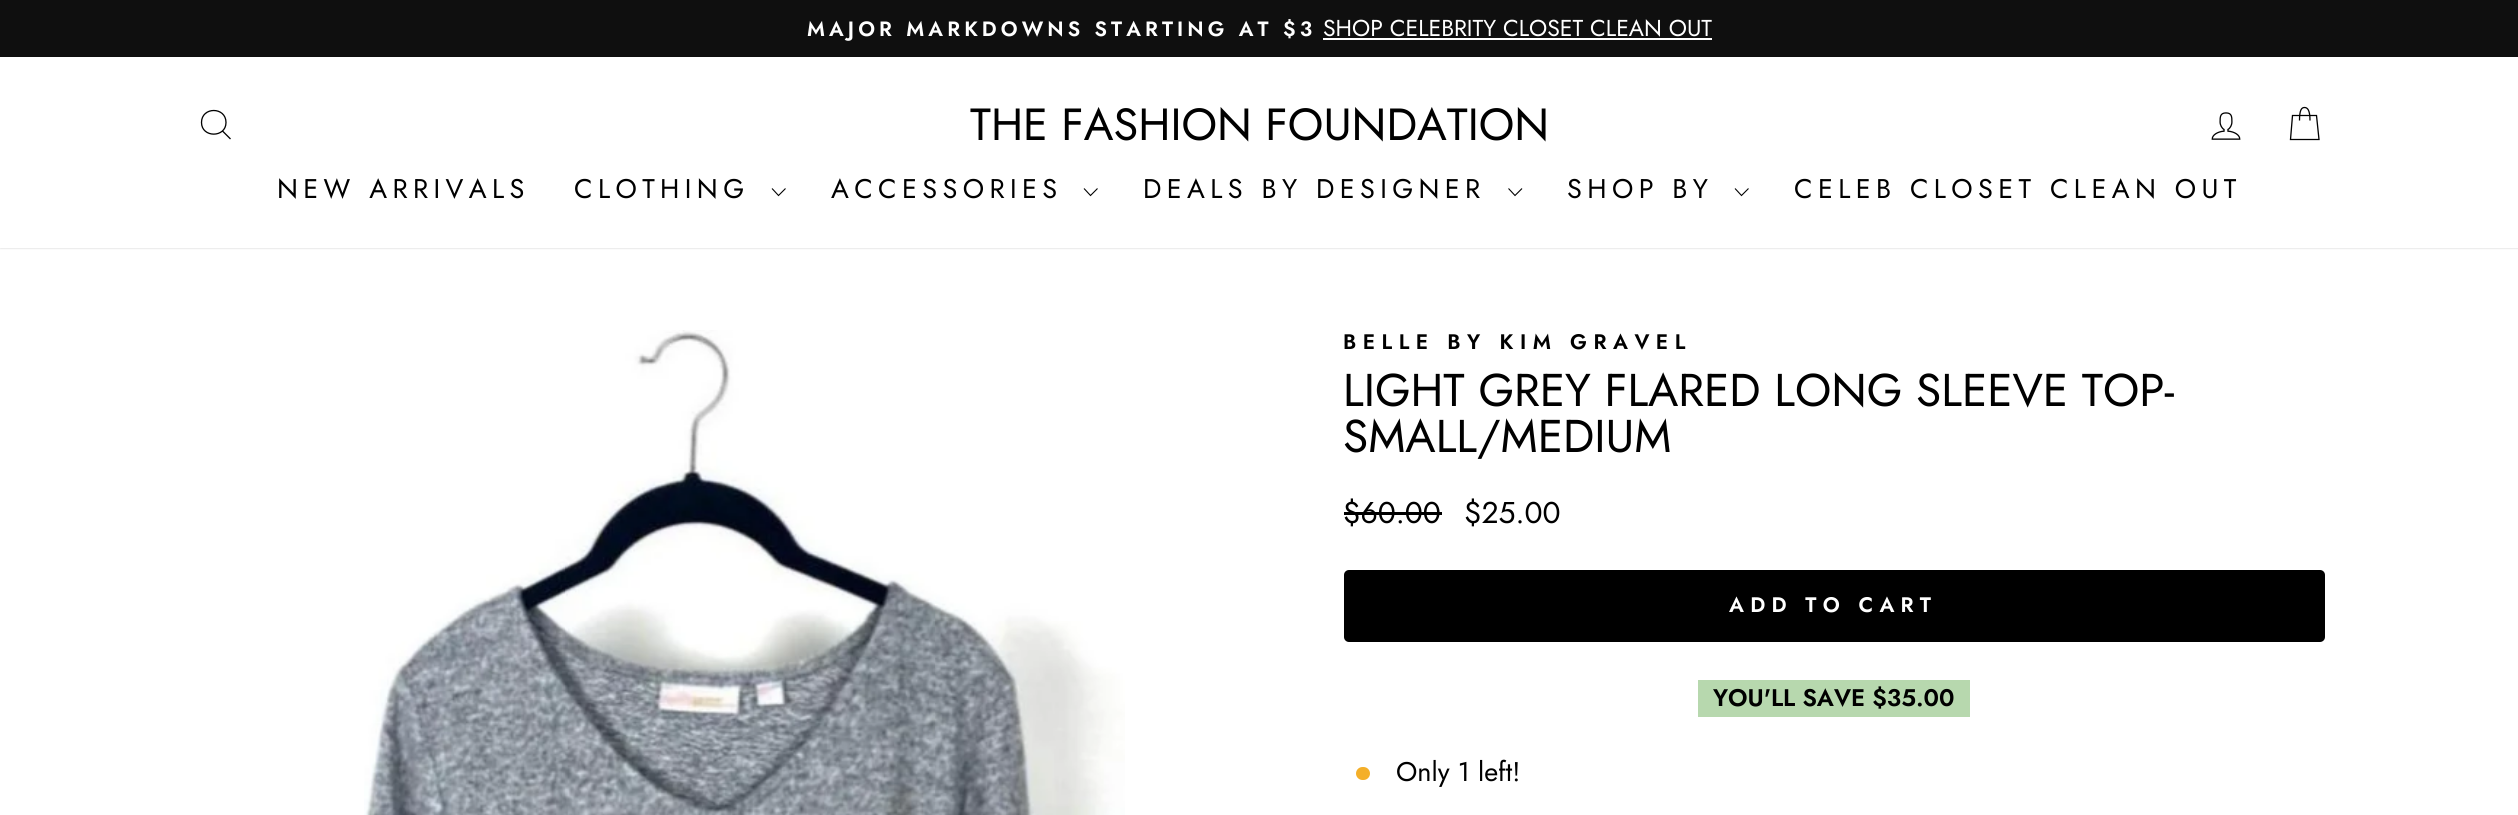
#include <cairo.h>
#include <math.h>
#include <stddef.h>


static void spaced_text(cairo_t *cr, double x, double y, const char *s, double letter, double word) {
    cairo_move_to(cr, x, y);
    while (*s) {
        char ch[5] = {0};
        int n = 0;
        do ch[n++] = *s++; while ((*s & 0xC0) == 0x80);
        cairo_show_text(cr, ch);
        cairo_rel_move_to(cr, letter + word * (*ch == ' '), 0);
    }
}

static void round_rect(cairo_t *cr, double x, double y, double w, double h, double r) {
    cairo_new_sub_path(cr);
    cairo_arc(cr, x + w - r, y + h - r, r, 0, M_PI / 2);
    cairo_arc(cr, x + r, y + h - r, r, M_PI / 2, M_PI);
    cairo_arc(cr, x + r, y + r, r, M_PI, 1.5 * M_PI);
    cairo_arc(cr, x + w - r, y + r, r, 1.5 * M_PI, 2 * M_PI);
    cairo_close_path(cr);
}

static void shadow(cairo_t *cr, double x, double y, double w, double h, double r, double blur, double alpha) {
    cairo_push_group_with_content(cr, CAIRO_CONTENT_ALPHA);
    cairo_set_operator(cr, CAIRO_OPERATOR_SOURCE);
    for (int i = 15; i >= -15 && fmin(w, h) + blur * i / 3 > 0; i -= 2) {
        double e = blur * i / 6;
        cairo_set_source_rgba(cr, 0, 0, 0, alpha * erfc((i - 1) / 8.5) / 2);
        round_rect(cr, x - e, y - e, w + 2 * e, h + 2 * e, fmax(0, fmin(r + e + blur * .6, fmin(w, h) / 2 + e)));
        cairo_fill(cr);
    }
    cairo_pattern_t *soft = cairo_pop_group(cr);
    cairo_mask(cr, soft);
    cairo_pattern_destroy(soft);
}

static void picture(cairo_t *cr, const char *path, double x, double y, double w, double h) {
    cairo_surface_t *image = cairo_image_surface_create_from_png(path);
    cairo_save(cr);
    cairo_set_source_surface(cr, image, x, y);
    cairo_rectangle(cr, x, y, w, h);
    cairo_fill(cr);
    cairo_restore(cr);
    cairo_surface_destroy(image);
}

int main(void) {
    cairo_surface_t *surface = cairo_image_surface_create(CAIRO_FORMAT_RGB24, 2518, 815);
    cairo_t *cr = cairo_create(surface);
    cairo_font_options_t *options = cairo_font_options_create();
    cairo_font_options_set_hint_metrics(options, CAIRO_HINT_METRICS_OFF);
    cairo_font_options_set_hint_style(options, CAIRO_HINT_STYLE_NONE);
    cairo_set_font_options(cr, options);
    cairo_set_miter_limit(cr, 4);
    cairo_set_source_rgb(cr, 1, 1, 1);
    cairo_paint(cr);
    cairo_set_source_rgb(cr, 0.059, 0.059, 0.059);
    cairo_rectangle(cr, 0, 0, 2518, 57);
    cairo_fill(cr);
    cairo_select_font_face(cr, "Jost SemiBold", CAIRO_FONT_SLANT_NORMAL, CAIRO_FONT_WEIGHT_NORMAL);
    cairo_set_font_size(cr, 20.7);
    cairo_set_source_rgb(cr, 1, 1, 1);
    spaced_text(cr, 807, 36, "MAJOR MARKDOWNS STARTING AT $3", 4.1, 0);
    cairo_select_font_face(cr, "Jost", CAIRO_FONT_SLANT_NORMAL, CAIRO_FONT_WEIGHT_NORMAL);
    cairo_set_font_size(cr, 23);
    cairo_move_to(cr, 1323, 36);
    cairo_show_text(cr, "SHOP CELEBRITY CLOSET CLEAN OUT");
    cairo_rectangle(cr, 1323, 38, 389, 2);
    cairo_fill(cr);
    cairo_set_source_rgb(cr, 0, 0, 0);
    shadow(cr, 0, 57, 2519, 191, 0, 1, 0.2);
    cairo_set_source_rgb(cr, 1, 1, 1);
    cairo_rectangle(cr, 0, 57, 2518, 191);
    cairo_fill(cr);
    cairo_new_path(cr);
    cairo_move_to(cr, 226, 122.5);
    cairo_curve_to(cr, 226, 138, 201.5, 138, 201.5, 122.5);
    cairo_curve_to(cr, 201.5, 106.5, 226, 106.5, 226, 122.5);
    cairo_close_path(cr);
    cairo_move_to(cr, 230.5, 139);
    cairo_line_to(cr, 222.5, 131);
    cairo_set_source_rgb(cr, 0, 0, 0);
    cairo_set_line_width(cr, 1.3);
    cairo_stroke(cr);
    cairo_set_font_size(cr, 45);
    cairo_move_to(cr, 970, 140);
    cairo_show_text(cr, "THE FASHION FOUNDATION");
    picture(cr, "img1.png", 2211, 112, 30, 28);
    cairo_new_path(cr);
    cairo_move_to(cr, 2299.5, 120.5);
    cairo_curve_to(cr, 2299.5, 110, 2301.5, 107.5, 2304.5, 107.5);
    cairo_curve_to(cr, 2307.5, 107.5, 2310, 110, 2310, 120.5);
    cairo_move_to(cr, 2292.5, 115.5);
    cairo_line_to(cr, 2316.5, 115.5);
    cairo_line_to(cr, 2319, 139.5);
    cairo_line_to(cr, 2290.5, 139.5);
    cairo_close_path(cr);
    cairo_stroke(cr);
    cairo_set_font_size(cr, 27);
    spaced_text(cr, 277, 198, "NEW ARRIVALS", 5.4, 0);
    spaced_text(cr, 574, 198, "CLOTHING", 5.4, 0);
    cairo_new_path(cr);
    cairo_move_to(cr, 772, 188.5);
    cairo_line_to(cr, 778.5, 195.5);
    cairo_line_to(cr, 785.5, 188.5);
    cairo_set_line_width(cr, 1.1);
    cairo_stroke(cr);
    spaced_text(cr, 831, 198, "ACCESSORIES", 5.4, 0);
    cairo_new_path(cr);
    cairo_move_to(cr, 1084, 188.5);
    cairo_line_to(cr, 1090.5, 195.5);
    cairo_line_to(cr, 1097.5, 188.5);
    cairo_stroke(cr);
    spaced_text(cr, 1143, 198, "DEALS BY DESIGNER", 5.4, 0);
    cairo_new_path(cr);
    cairo_move_to(cr, 1508.5, 188.5);
    cairo_line_to(cr, 1515, 195.5);
    cairo_line_to(cr, 1522, 188.5);
    cairo_stroke(cr);
    spaced_text(cr, 1567, 198, "SHOP BY", 5.4, 0);
    cairo_new_path(cr);
    cairo_move_to(cr, 1735, 188.5);
    cairo_line_to(cr, 1741.5, 195.5);
    cairo_line_to(cr, 1748.5, 188.5);
    cairo_stroke(cr);
    spaced_text(cr, 1794, 198, "CELEB CLOSET CLEAN OUT", 5.4, 0);
    picture(cr, "img2.png", 364, 330, 761, 485);
    cairo_select_font_face(cr, "Jost SemiBold", CAIRO_FONT_SLANT_NORMAL, CAIRO_FONT_WEIGHT_NORMAL);
    cairo_set_font_size(cr, 21);
    spaced_text(cr, 1343, 349, "BELLE BY KIM GRAVEL", 6.5, 0);
    cairo_select_font_face(cr, "Jost", CAIRO_FONT_SLANT_NORMAL, CAIRO_FONT_WEIGHT_NORMAL);
    cairo_set_font_size(cr, 45.9);
    cairo_move_to(cr, 1343, 406);
    cairo_show_text(cr, "LIGHT GREY FLARED LONG SLEEVE TOP-");
    cairo_move_to(cr, 1343, 452);
    cairo_show_text(cr, "SMALL/MEDIUM");
    cairo_set_font_size(cr, 30);
    cairo_move_to(cr, 1343, 523);
    cairo_show_text(cr, "$60.00");
    cairo_rectangle(cr, 1344, 512, 98, 3);
    cairo_fill(cr);
    cairo_move_to(cr, 1464, 523);
    cairo_show_text(cr, "$25.00");
    round_rect(cr, 1344, 570, 981, 72, 5);
    cairo_fill(cr);
    cairo_select_font_face(cr, "Jost SemiBold", CAIRO_FONT_SLANT_NORMAL, CAIRO_FONT_WEIGHT_NORMAL);
    cairo_set_font_size(cr, 21);
    cairo_set_source_rgb(cr, 1, 1, 1);
    spaced_text(cr, 1729, 612, "ADD TO CART", 6.25, 0);
    cairo_set_source_rgb(cr, 0.718, 0.847, 0.682);
    cairo_rectangle(cr, 1698, 680, 272, 37);
    cairo_fill(cr);
    cairo_set_font_size(cr, 24);
    cairo_set_source_rgb(cr, 0, 0, 0);
    cairo_move_to(cr, 1713, 706);
    cairo_show_text(cr, "YOU'LL SAVE $35.00");
    cairo_set_source_rgb(cr, 0.957, 0.686, 0.161);
    round_rect(cr, 1356, 767, 14, 13, 6.5);
    cairo_fill(cr);
    cairo_select_font_face(cr, "Jost", CAIRO_FONT_SLANT_NORMAL, CAIRO_FONT_WEIGHT_NORMAL);
    cairo_set_font_size(cr, 27);
    cairo_set_source_rgb(cr, 0, 0, 0);
    cairo_move_to(cr, 1396, 781);
    cairo_show_text(cr, "Only 1 left!");
    cairo_surface_write_to_png(surface, "page.png");
    cairo_font_options_destroy(options);
    cairo_destroy(cr);
    cairo_surface_destroy(surface);
    return 0;
}
